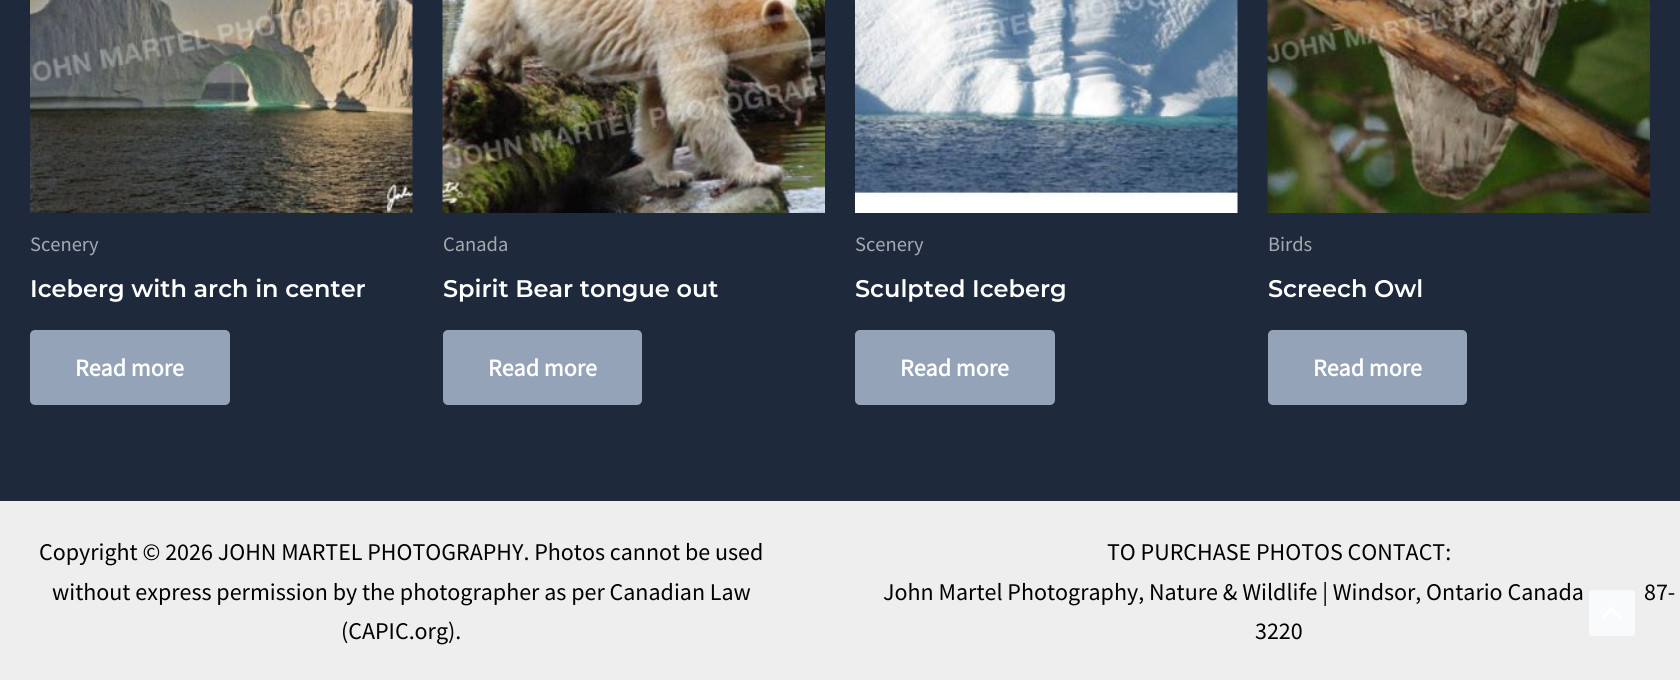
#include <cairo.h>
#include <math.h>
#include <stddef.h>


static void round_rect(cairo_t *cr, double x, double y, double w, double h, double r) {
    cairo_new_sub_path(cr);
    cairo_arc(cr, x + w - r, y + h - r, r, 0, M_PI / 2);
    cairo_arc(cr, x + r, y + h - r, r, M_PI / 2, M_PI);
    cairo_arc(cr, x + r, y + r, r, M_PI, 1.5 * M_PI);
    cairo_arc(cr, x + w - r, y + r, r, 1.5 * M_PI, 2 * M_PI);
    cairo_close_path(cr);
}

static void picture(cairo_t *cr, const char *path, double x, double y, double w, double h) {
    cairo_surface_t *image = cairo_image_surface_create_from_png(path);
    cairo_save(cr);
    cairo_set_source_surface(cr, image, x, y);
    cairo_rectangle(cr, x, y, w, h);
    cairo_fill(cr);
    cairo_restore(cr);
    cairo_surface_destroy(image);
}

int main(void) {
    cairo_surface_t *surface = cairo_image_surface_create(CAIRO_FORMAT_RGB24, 1680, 680);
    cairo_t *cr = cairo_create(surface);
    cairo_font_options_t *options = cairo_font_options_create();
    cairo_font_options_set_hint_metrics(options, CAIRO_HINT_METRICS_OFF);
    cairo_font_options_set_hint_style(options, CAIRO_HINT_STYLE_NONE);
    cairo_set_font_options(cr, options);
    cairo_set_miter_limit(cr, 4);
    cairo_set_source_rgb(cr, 0.118, 0.161, 0.231);
    cairo_paint(cr);
    picture(cr, "img1.png", 30, 0, 383, 213);
    cairo_select_font_face(cr, "Source Sans Pro", CAIRO_FONT_SLANT_NORMAL, CAIRO_FONT_WEIGHT_NORMAL);
    cairo_set_font_size(cr, 20.5);
    cairo_set_source_rgb(cr, 0.647, 0.663, 0.694);
    cairo_move_to(cr, 30, 251);
    cairo_show_text(cr, "Scenery");
    cairo_select_font_face(cr, "Montserrat SemiBold", CAIRO_FONT_SLANT_NORMAL, CAIRO_FONT_WEIGHT_NORMAL);
    cairo_set_font_size(cr, 24);
    cairo_set_source_rgb(cr, 1, 1, 1);
    cairo_move_to(cr, 30, 297);
    cairo_show_text(cr, "Iceberg with arch in center");
    cairo_set_source_rgb(cr, 0.58, 0.639, 0.722);
    round_rect(cr, 30, 330, 200, 75, 5);
    cairo_fill(cr);
    cairo_select_font_face(cr, "Source Sans Pro", CAIRO_FONT_SLANT_NORMAL, CAIRO_FONT_WEIGHT_BOLD);
    cairo_set_source_rgb(cr, 1, 1, 1);
    cairo_move_to(cr, 75, 376);
    cairo_show_text(cr, "Read more");
    picture(cr, "img2.png", 442, 0, 383, 213);
    cairo_select_font_face(cr, "Source Sans Pro", CAIRO_FONT_SLANT_NORMAL, CAIRO_FONT_WEIGHT_NORMAL);
    cairo_set_font_size(cr, 20.5);
    cairo_set_source_rgb(cr, 0.647, 0.663, 0.694);
    cairo_move_to(cr, 443, 251);
    cairo_show_text(cr, "Canada");
    cairo_select_font_face(cr, "Montserrat SemiBold", CAIRO_FONT_SLANT_NORMAL, CAIRO_FONT_WEIGHT_NORMAL);
    cairo_set_font_size(cr, 24);
    cairo_set_source_rgb(cr, 1, 1, 1);
    cairo_move_to(cr, 443, 297);
    cairo_show_text(cr, "Spirit Bear tongue out");
    cairo_set_source_rgb(cr, 0.58, 0.639, 0.722);
    round_rect(cr, 443, 330, 199, 75, 5);
    cairo_fill(cr);
    cairo_select_font_face(cr, "Source Sans Pro", CAIRO_FONT_SLANT_NORMAL, CAIRO_FONT_WEIGHT_BOLD);
    cairo_set_source_rgb(cr, 1, 1, 1);
    cairo_move_to(cr, 488, 376);
    cairo_show_text(cr, "Read more");
    picture(cr, "img3.png", 855, 0, 383, 213);
    cairo_select_font_face(cr, "Source Sans Pro", CAIRO_FONT_SLANT_NORMAL, CAIRO_FONT_WEIGHT_NORMAL);
    cairo_set_font_size(cr, 20.5);
    cairo_set_source_rgb(cr, 0.647, 0.663, 0.694);
    cairo_move_to(cr, 855, 251);
    cairo_show_text(cr, "Scenery");
    cairo_select_font_face(cr, "Montserrat SemiBold", CAIRO_FONT_SLANT_NORMAL, CAIRO_FONT_WEIGHT_NORMAL);
    cairo_set_font_size(cr, 24);
    cairo_set_source_rgb(cr, 1, 1, 1);
    cairo_move_to(cr, 855, 297);
    cairo_show_text(cr, "Sculpted Iceberg");
    cairo_set_source_rgb(cr, 0.58, 0.639, 0.722);
    round_rect(cr, 855, 330, 200, 75, 5);
    cairo_fill(cr);
    cairo_select_font_face(cr, "Source Sans Pro", CAIRO_FONT_SLANT_NORMAL, CAIRO_FONT_WEIGHT_BOLD);
    cairo_set_source_rgb(cr, 1, 1, 1);
    cairo_move_to(cr, 900, 376);
    cairo_show_text(cr, "Read more");
    picture(cr, "img4.png", 1267, 0, 383, 213);
    cairo_select_font_face(cr, "Source Sans Pro", CAIRO_FONT_SLANT_NORMAL, CAIRO_FONT_WEIGHT_NORMAL);
    cairo_set_font_size(cr, 20.5);
    cairo_set_source_rgb(cr, 0.647, 0.663, 0.694);
    cairo_move_to(cr, 1268, 251);
    cairo_show_text(cr, "Birds");
    cairo_select_font_face(cr, "Montserrat SemiBold", CAIRO_FONT_SLANT_NORMAL, CAIRO_FONT_WEIGHT_NORMAL);
    cairo_set_font_size(cr, 24);
    cairo_set_source_rgb(cr, 1, 1, 1);
    cairo_move_to(cr, 1268, 297);
    cairo_show_text(cr, "Screech Owl");
    cairo_set_source_rgb(cr, 0.58, 0.639, 0.722);
    round_rect(cr, 1268, 330, 199, 75, 5);
    cairo_fill(cr);
    cairo_select_font_face(cr, "Source Sans Pro", CAIRO_FONT_SLANT_NORMAL, CAIRO_FONT_WEIGHT_BOLD);
    cairo_set_source_rgb(cr, 1, 1, 1);
    cairo_move_to(cr, 1313, 376);
    cairo_show_text(cr, "Read more");
    cairo_set_source_rgb(cr, 0.933, 0.933, 0.933);
    cairo_rectangle(cr, 0, 501, 1680, 179);
    cairo_fill(cr);
    cairo_select_font_face(cr, "Source Sans Pro", CAIRO_FONT_SLANT_NORMAL, CAIRO_FONT_WEIGHT_NORMAL);
    cairo_set_source_rgb(cr, 0, 0, 0);
    cairo_move_to(cr, 39, 560);
    cairo_show_text(cr, "Copyright © 2026 JOHN MARTEL PHOTOGRAPHY. Photos cannot be used");
    cairo_move_to(cr, 52, 600);
    cairo_show_text(cr, "without express permission by the photographer as per Canadian Law");
    cairo_move_to(cr, 341, 639);
    cairo_show_text(cr, "(CAPIC.org).");
    cairo_move_to(cr, 1107, 560);
    cairo_show_text(cr, "TO PURCHASE PHOTOS CONTACT:");
    cairo_move_to(cr, 883, 600);
    cairo_show_text(cr, "John Martel Photography, Nature & Wildlife | Windsor, Ontario Canada");
    cairo_move_to(cr, 1644, 600);
    cairo_show_text(cr, "87-");
    cairo_move_to(cr, 1255, 639);
    cairo_show_text(cr, "3220");
    cairo_set_source_rgb(cr, 0.976, 0.98, 0.984);
    round_rect(cr, 1589, 590, 46, 46, 3);
    cairo_fill(cr);
    cairo_set_source_rgb(cr, 1, 1, 1);
    cairo_new_path(cr);
    cairo_move_to(cr, 1622.5, 617);
    cairo_line_to(cr, 1611.5, 606.5);
    cairo_line_to(cr, 1601, 617);
    cairo_line_to(cr, 1603.5, 619);
    cairo_line_to(cr, 1611.5, 610.5);
    cairo_line_to(cr, 1620, 619);
    cairo_close_path(cr);
    cairo_fill(cr);
    cairo_surface_write_to_png(surface, "page.png");
    cairo_font_options_destroy(options);
    cairo_destroy(cr);
    cairo_surface_destroy(surface);
    return 0;
}
